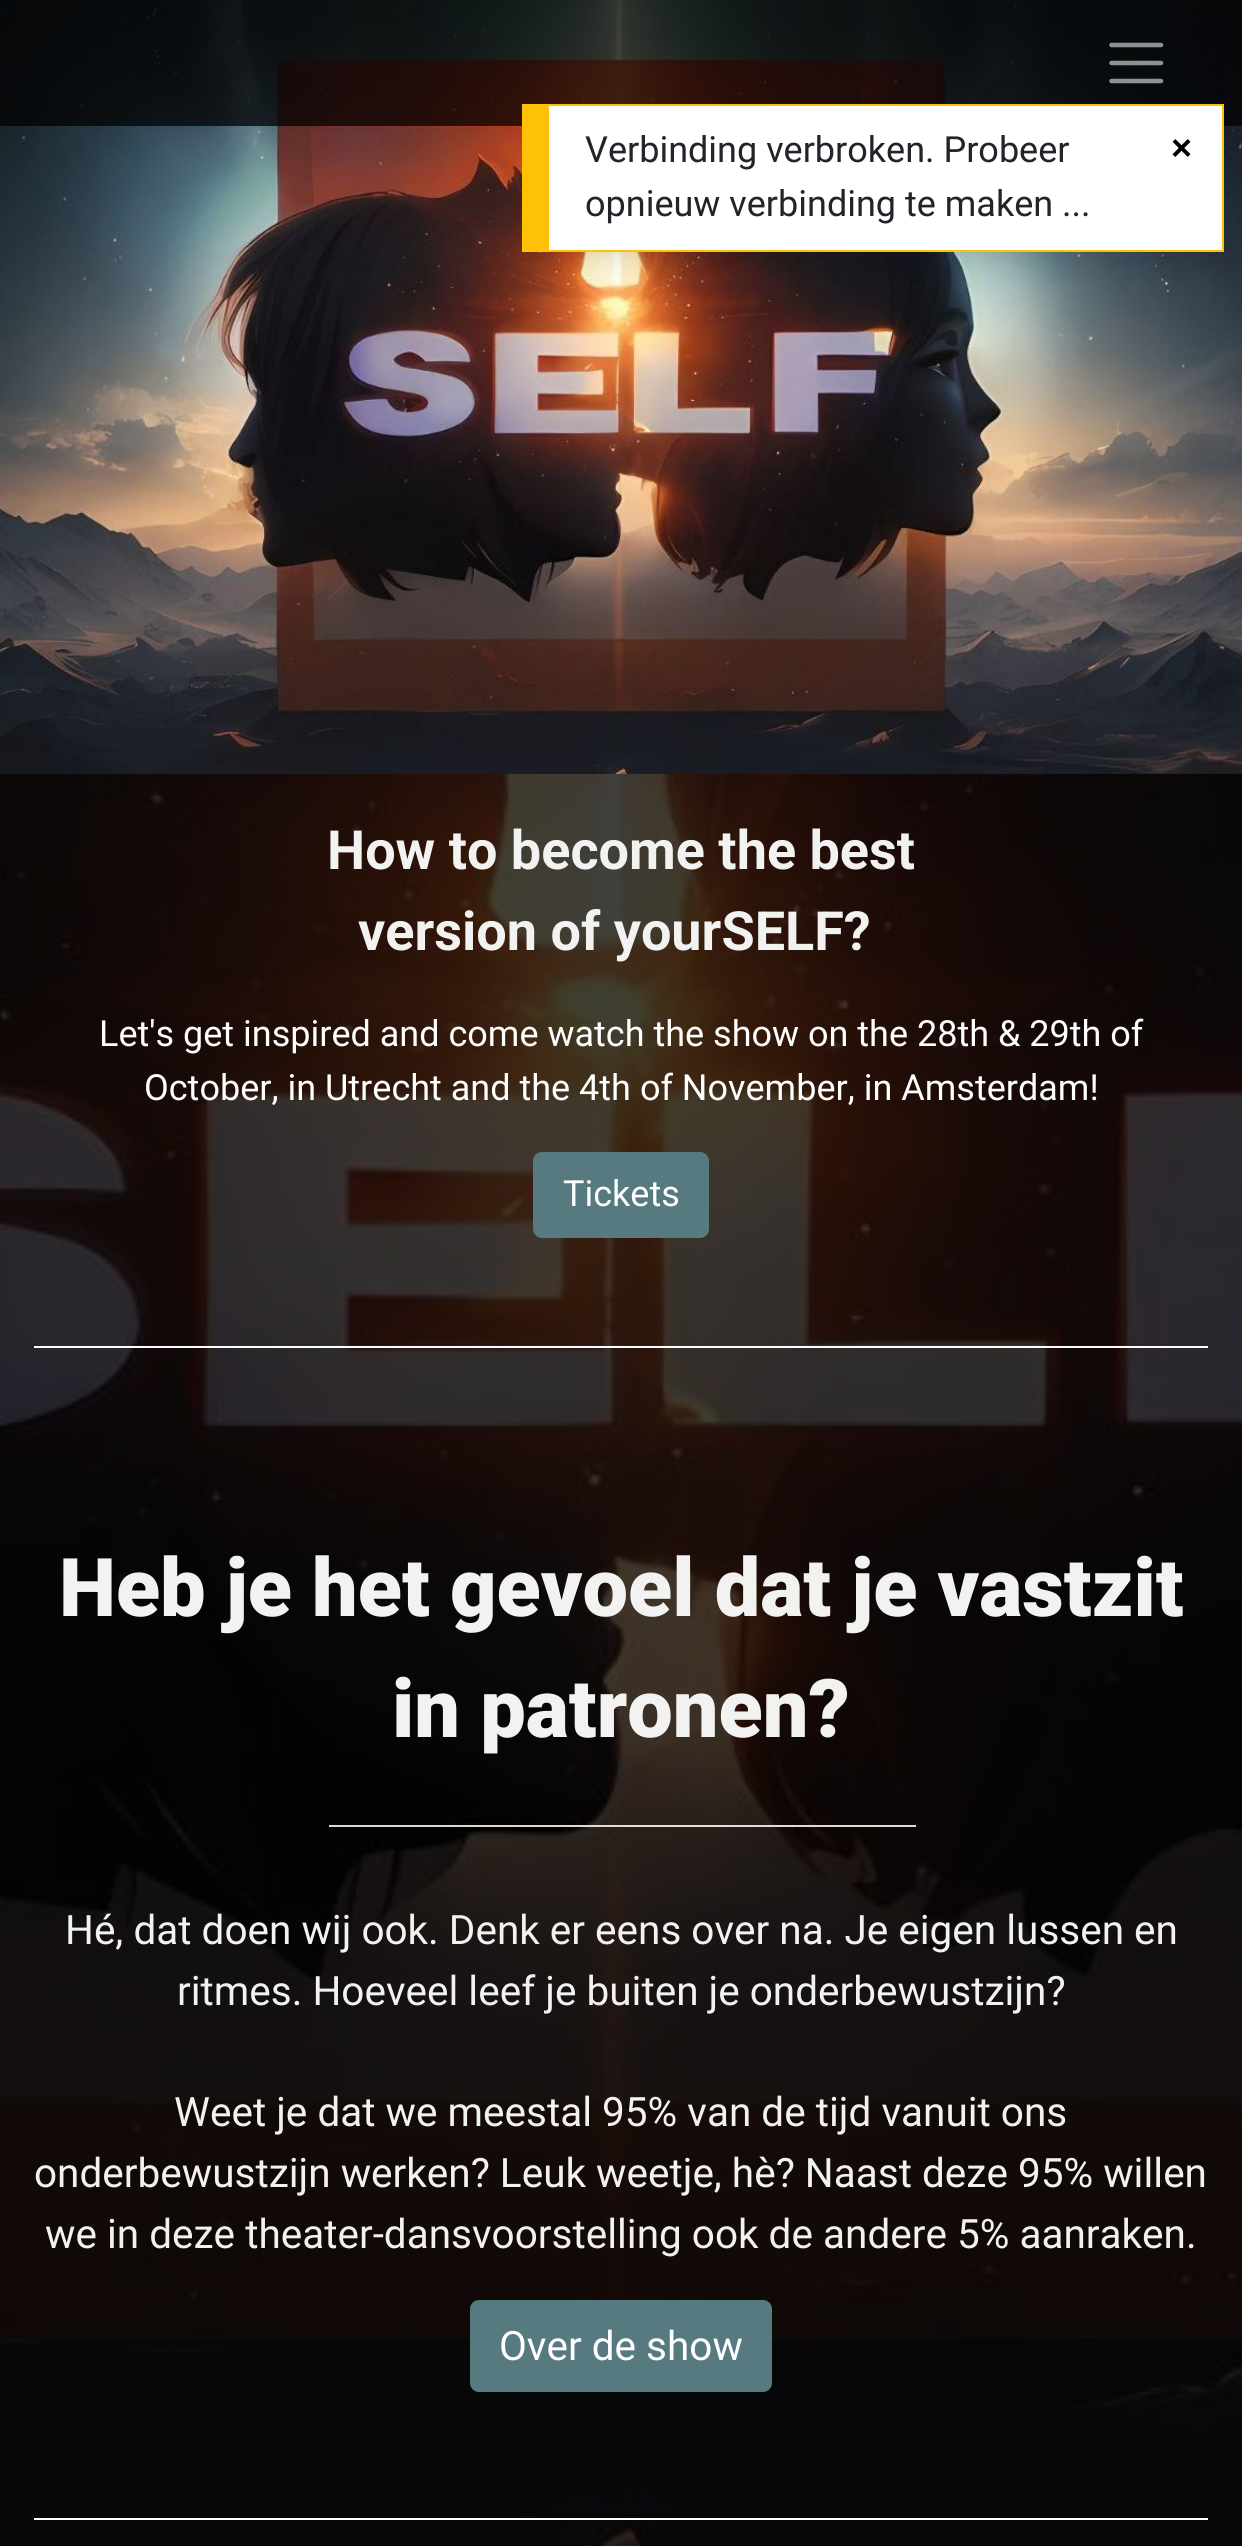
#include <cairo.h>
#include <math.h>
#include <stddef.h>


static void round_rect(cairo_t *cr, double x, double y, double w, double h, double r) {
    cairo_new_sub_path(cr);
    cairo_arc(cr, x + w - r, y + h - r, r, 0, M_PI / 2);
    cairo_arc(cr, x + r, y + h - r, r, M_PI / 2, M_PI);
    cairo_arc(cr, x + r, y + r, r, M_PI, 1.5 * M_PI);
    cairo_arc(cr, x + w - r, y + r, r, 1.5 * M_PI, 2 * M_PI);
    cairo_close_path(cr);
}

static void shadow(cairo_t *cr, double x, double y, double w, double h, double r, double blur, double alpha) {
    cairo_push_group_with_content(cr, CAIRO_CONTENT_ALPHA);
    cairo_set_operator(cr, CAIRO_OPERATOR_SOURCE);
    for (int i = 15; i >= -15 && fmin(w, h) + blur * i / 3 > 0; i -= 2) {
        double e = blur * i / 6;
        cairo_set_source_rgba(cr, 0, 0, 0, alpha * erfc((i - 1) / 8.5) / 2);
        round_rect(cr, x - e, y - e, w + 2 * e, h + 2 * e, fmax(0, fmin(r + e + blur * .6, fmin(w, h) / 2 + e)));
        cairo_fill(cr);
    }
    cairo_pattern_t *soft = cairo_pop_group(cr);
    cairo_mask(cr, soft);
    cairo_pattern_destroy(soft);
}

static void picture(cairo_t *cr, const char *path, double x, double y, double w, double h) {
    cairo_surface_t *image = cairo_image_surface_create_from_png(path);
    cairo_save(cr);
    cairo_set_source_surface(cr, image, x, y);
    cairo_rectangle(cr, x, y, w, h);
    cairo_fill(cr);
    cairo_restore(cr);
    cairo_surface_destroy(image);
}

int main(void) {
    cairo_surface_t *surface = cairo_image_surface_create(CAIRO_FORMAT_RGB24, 1242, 2546);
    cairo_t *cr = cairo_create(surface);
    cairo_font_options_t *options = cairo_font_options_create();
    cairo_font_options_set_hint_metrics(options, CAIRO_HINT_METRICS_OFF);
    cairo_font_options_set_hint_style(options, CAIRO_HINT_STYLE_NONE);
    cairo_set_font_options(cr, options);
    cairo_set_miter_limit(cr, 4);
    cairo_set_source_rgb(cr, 1, 1, 1);
    cairo_paint(cr);
    picture(cr, "img2.png", 0, 0, 1242, 774);
    cairo_set_source_rgba(cr, 0, 0, 0, 0.75);
    cairo_rectangle(cr, 0, 0, 1242, 126);
    cairo_fill(cr);
    cairo_new_path(cr);
    cairo_move_to(cr, 1111.5, 45);
    cairo_line_to(cr, 1161, 45);
    cairo_move_to(cr, 1111.5, 63);
    cairo_line_to(cr, 1161, 63);
    cairo_move_to(cr, 1111.5, 81);
    cairo_line_to(cr, 1161, 81);
    cairo_set_source_rgba(cr, 1, 1, 1, 0.55);
    cairo_set_line_width(cr, 4.5);
    cairo_set_line_cap(cr, CAIRO_LINE_CAP_ROUND);
    cairo_stroke(cr);
    cairo_set_source_rgb(cr, 0, 0, 0);
    shadow(cr, 522, 113, 702, 148, 0, 13.5, 0.1);
    cairo_set_source_rgb(cr, 1, 1, 1);
    cairo_rectangle(cr, 549, 106, 673, 144);
    cairo_fill(cr);
    cairo_set_source_rgb(cr, 1, 0.757, 0.027);
    cairo_rectangle(cr, 549, 104, 675, 2);
    cairo_fill(cr);
    cairo_rectangle(cr, 1222, 104, 2, 148);
    cairo_fill(cr);
    cairo_rectangle(cr, 549, 250, 675, 2);
    cairo_fill(cr);
    cairo_rectangle(cr, 522, 104, 27, 148);
    cairo_fill(cr);
    cairo_select_font_face(cr, "Roboto", CAIRO_FONT_SLANT_NORMAL, CAIRO_FONT_WEIGHT_NORMAL);
    cairo_set_font_size(cr, 36);
    cairo_set_source_rgb(cr, 0.129, 0.145, 0.161);
    cairo_move_to(cr, 585, 162);
    cairo_show_text(cr, "Verbinding verbroken. Probeer");
    cairo_move_to(cr, 585, 216);
    cairo_show_text(cr, "opnieuw verbinding te maken ...");
    cairo_select_font_face(cr, "Liberation Sans", CAIRO_FONT_SLANT_NORMAL, CAIRO_FONT_WEIGHT_BOLD);
    cairo_set_source_rgb(cr, 0, 0, 0);
    cairo_move_to(cr, 1171, 160);
    cairo_show_text(cr, "×");
    picture(cr, "img1.png", 0, 774, 1242, 1772);
    cairo_set_source_rgba(cr, 0, 0, 0, 0.75);
    cairo_rectangle(cr, 0, 774, 1242, 664);
    cairo_fill(cr);
    cairo_select_font_face(cr, "Roboto", CAIRO_FONT_SLANT_NORMAL, CAIRO_FONT_WEIGHT_BOLD);
    cairo_set_font_size(cr, 54);
    cairo_set_source_rgb(cr, 0.949, 0.949, 0.945);
    cairo_move_to(cr, 327, 869);
    cairo_show_text(cr, "How to become the best");
    cairo_move_to(cr, 358, 950);
    cairo_show_text(cr, "version of yourSELF?");
    cairo_select_font_face(cr, "Roboto", CAIRO_FONT_SLANT_NORMAL, CAIRO_FONT_WEIGHT_NORMAL);
    cairo_set_font_size(cr, 36);
    cairo_set_source_rgb(cr, 1, 1, 1);
    cairo_move_to(cr, 99, 1046);
    cairo_show_text(cr, "Let's get inspired and come watch the show on the 28th & 29th of");
    cairo_move_to(cr, 144, 1100);
    cairo_show_text(cr, "October, in Utrecht and the 4th of November, in Amsterdam!");
    cairo_set_source_rgb(cr, 0.341, 0.478, 0.502);
    round_rect(cr, 534, 1153, 174, 84, 8);
    cairo_fill_preserve(cr);
    cairo_set_line_width(cr, 2);
    cairo_set_line_cap(cr, CAIRO_LINE_CAP_BUTT);
    cairo_stroke(cr);
    cairo_set_source_rgb(cr, 1, 1, 1);
    cairo_move_to(cr, 563, 1206);
    cairo_show_text(cr, "Tickets");
    cairo_rectangle(cr, 34, 1346, 1174, 2);
    cairo_fill(cr);
    cairo_set_source_rgba(cr, 0, 0, 0, 0.75);
    cairo_rectangle(cr, 0, 1438, 1242, 990);
    cairo_fill(cr);
    cairo_select_font_face(cr, "Roboto Black", CAIRO_FONT_SLANT_NORMAL, CAIRO_FONT_WEIGHT_NORMAL);
    cairo_set_font_size(cr, 81);
    cairo_set_source_rgb(cr, 0.949, 0.949, 0.945);
    cairo_move_to(cr, 59, 1616);
    cairo_show_text(cr, "Heb je het gevoel dat je vastzit");
    cairo_move_to(cr, 392, 1737);
    cairo_show_text(cr, "in patronen?");
    cairo_set_source_rgba(cr, 1, 1, 1, 0.85);
    cairo_rectangle(cr, 329, 1825, 587, 2);
    cairo_fill(cr);
    cairo_select_font_face(cr, "Roboto", CAIRO_FONT_SLANT_NORMAL, CAIRO_FONT_WEIGHT_NORMAL);
    cairo_set_font_size(cr, 40.5);
    cairo_set_source_rgb(cr, 0.949, 0.949, 0.945);
    cairo_move_to(cr, 65, 1944);
    cairo_show_text(cr, "Hé, dat doen wij ook. Denk er eens over na. Je eigen lussen en");
    cairo_move_to(cr, 177, 2005);
    cairo_show_text(cr, "ritmes. Hoeveel leef je buiten je onderbewustzijn?");
    cairo_move_to(cr, 174, 2126);
    cairo_show_text(cr, "Weet je dat we meestal 95% van de tijd vanuit ons");
    cairo_move_to(cr, 34, 2187);
    cairo_show_text(cr, "onderbewustzijn werken? Leuk weetje, hè? Naast deze 95% willen");
    cairo_move_to(cr, 45, 2248);
    cairo_show_text(cr, "we in deze theater-dansvoorstelling ook de andere 5% aanraken.");
    cairo_set_source_rgb(cr, 0.341, 0.478, 0.502);
    round_rect(cr, 471, 2301, 300, 90, 8);
    cairo_fill_preserve(cr);
    cairo_stroke(cr);
    cairo_set_source_rgb(cr, 1, 1, 1);
    cairo_move_to(cr, 499, 2360);
    cairo_show_text(cr, "Over de show");
    cairo_set_source_rgba(cr, 0, 0, 0, 0.75);
    cairo_rectangle(cr, 0, 2428, 1242, 118);
    cairo_fill(cr);
    cairo_set_source_rgb(cr, 1, 1, 1);
    cairo_rectangle(cr, 34, 2518, 1174, 2);
    cairo_fill(cr);
    cairo_surface_write_to_png(surface, "page.png");
    cairo_font_options_destroy(options);
    cairo_destroy(cr);
    cairo_surface_destroy(surface);
    return 0;
}
